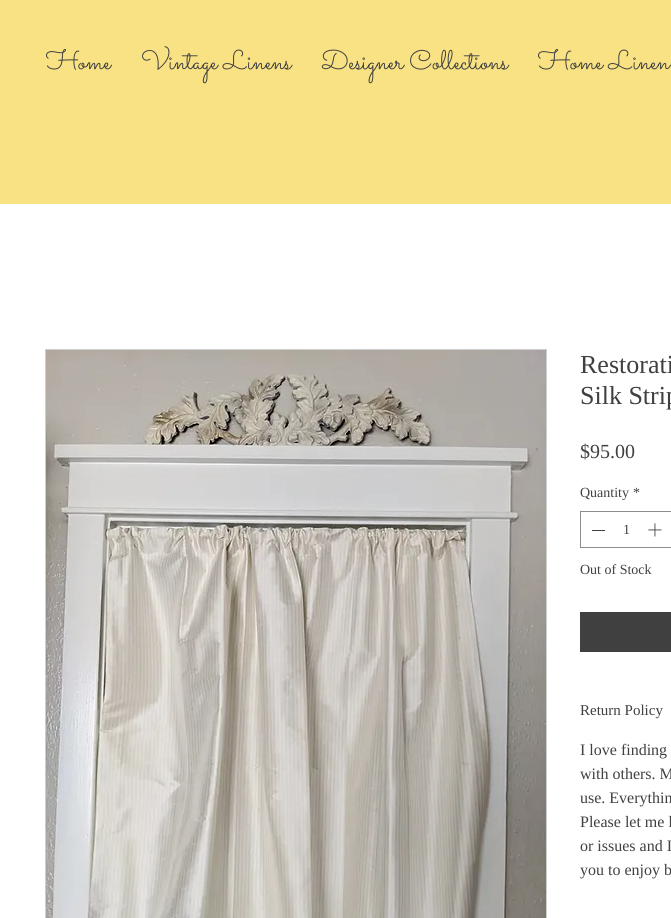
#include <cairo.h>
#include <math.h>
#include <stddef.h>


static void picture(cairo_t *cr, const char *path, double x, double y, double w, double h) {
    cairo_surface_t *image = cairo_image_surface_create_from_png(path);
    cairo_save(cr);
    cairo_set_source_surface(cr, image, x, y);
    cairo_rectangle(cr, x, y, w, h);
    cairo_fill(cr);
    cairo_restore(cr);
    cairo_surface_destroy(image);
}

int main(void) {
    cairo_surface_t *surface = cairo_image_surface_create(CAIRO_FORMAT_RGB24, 671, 918);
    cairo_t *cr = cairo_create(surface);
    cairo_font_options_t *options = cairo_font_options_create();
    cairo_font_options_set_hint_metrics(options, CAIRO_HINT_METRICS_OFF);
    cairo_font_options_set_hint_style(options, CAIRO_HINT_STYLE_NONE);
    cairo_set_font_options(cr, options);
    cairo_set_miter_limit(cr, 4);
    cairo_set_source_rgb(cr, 1, 1, 1);
    cairo_paint(cr);
    cairo_set_source_rgb(cr, 0.969, 0.886, 0.514);
    cairo_rectangle(cr, 0, 0, 671, 204);
    cairo_fill(cr);
    cairo_select_font_face(cr, "Sacramento", CAIRO_FONT_SLANT_NORMAL, CAIRO_FONT_WEIGHT_NORMAL);
    cairo_set_font_size(cr, 27);
    cairo_set_source_rgb(cr, 0.251, 0.251, 0.255);
    cairo_move_to(cr, 46, 69);
    cairo_show_text(cr, "Home");
    cairo_move_to(cr, 141, 69);
    cairo_show_text(cr, "Vintage Linens");
    cairo_move_to(cr, 321, 69);
    cairo_show_text(cr, "Designer Collections");
    cairo_move_to(cr, 538, 69);
    cairo_show_text(cr, "Home Linen");
    cairo_rectangle(cr, 45.5, 349.5, 501, 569);
    cairo_set_source_rgb(cr, 0.808, 0.808, 0.812);
    cairo_set_line_width(cr, 1);
    cairo_stroke(cr);
    picture(cr, "img1.png", 46, 350, 500, 568);
    cairo_select_font_face(cr, "Liberation Serif", CAIRO_FONT_SLANT_NORMAL, CAIRO_FONT_WEIGHT_NORMAL);
    cairo_set_font_size(cr, 26);
    cairo_set_source_rgb(cr, 0.251, 0.251, 0.255);
    cairo_move_to(cr, 580, 373);
    cairo_show_text(cr, "Restorati");
    cairo_move_to(cr, 580, 404);
    cairo_show_text(cr, "Silk Strip");
    cairo_set_font_size(cr, 20);
    cairo_move_to(cr, 580, 458);
    cairo_show_text(cr, "$95.00");
    cairo_set_font_size(cr, 14);
    cairo_move_to(cr, 580, 497);
    cairo_show_text(cr, "Quantity");
    cairo_move_to(cr, 633, 497);
    cairo_show_text(cr, "*");
    cairo_rectangle(cr, 580.5, 511.5, 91, 36);
    cairo_set_source_rgb(cr, 0.549, 0.549, 0.553);
    cairo_stroke(cr);
    cairo_set_source_rgb(cr, 0.251, 0.251, 0.255);
    cairo_rectangle(cr, 592, 530, 13, 1);
    cairo_fill(cr);
    cairo_move_to(cr, 623, 534);
    cairo_show_text(cr, "1");
    picture(cr, "img2.png", 648, 523, 14, 14);
    cairo_move_to(cr, 580, 574);
    cairo_show_text(cr, "Out of Stock");
    cairo_rectangle(cr, 580, 612, 91, 40);
    cairo_fill(cr);
    cairo_set_font_size(cr, 15);
    cairo_move_to(cr, 580, 715);
    cairo_show_text(cr, "Return Policy");
    cairo_set_font_size(cr, 16);
    cairo_move_to(cr, 580, 755);
    cairo_show_text(cr, "I love finding");
    cairo_move_to(cr, 580, 779);
    cairo_show_text(cr, "with others. M");
    cairo_move_to(cr, 580, 803);
    cairo_show_text(cr, "use. Everythin");
    cairo_move_to(cr, 580, 827);
    cairo_show_text(cr, "Please let me k");
    cairo_move_to(cr, 580, 851);
    cairo_show_text(cr, "or issues and I");
    cairo_move_to(cr, 580, 875);
    cairo_show_text(cr, "you to enjoy b");
    cairo_surface_write_to_png(surface, "page.png");
    cairo_font_options_destroy(options);
    cairo_destroy(cr);
    cairo_surface_destroy(surface);
    return 0;
}
